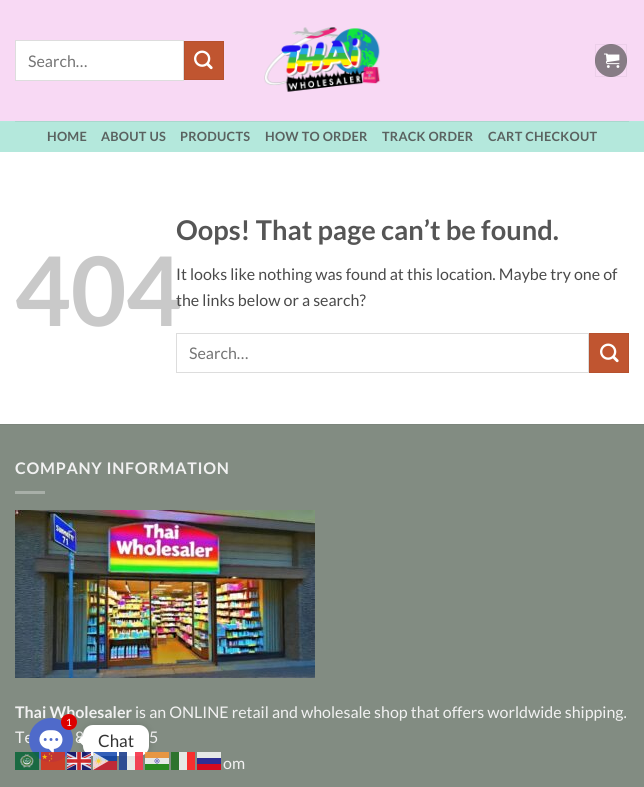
#include <cairo.h>
#include <math.h>
#include <stddef.h>


static void spaced_text(cairo_t *cr, double x, double y, const char *s, double letter, double word) {
    cairo_move_to(cr, x, y);
    while (*s) {
        char ch[5] = {0};
        int n = 0;
        do ch[n++] = *s++; while ((*s & 0xC0) == 0x80);
        cairo_show_text(cr, ch);
        cairo_rel_move_to(cr, letter + word * (*ch == ' '), 0);
    }
}

static void round_rect(cairo_t *cr, double x, double y, double w, double h, double r) {
    cairo_new_sub_path(cr);
    cairo_arc(cr, x + w - r, y + h - r, r, 0, M_PI / 2);
    cairo_arc(cr, x + r, y + h - r, r, M_PI / 2, M_PI);
    cairo_arc(cr, x + r, y + r, r, M_PI, 1.5 * M_PI);
    cairo_arc(cr, x + w - r, y + r, r, 1.5 * M_PI, 2 * M_PI);
    cairo_close_path(cr);
}

static void shadow(cairo_t *cr, double x, double y, double w, double h, double r, double blur, double alpha) {
    cairo_push_group_with_content(cr, CAIRO_CONTENT_ALPHA);
    cairo_set_operator(cr, CAIRO_OPERATOR_SOURCE);
    for (int i = 15; i >= -15 && fmin(w, h) + blur * i / 3 > 0; i -= 2) {
        double e = blur * i / 6;
        cairo_set_source_rgba(cr, 0, 0, 0, alpha * erfc((i - 1) / 8.5) / 2);
        round_rect(cr, x - e, y - e, w + 2 * e, h + 2 * e, fmax(0, fmin(r + e + blur * .6, fmin(w, h) / 2 + e)));
        cairo_fill(cr);
    }
    cairo_pattern_t *soft = cairo_pop_group(cr);
    cairo_mask(cr, soft);
    cairo_pattern_destroy(soft);
}

static void picture(cairo_t *cr, const char *path, double x, double y, double w, double h) {
    cairo_surface_t *image = cairo_image_surface_create_from_png(path);
    cairo_save(cr);
    cairo_set_source_surface(cr, image, x, y);
    cairo_rectangle(cr, x, y, w, h);
    cairo_fill(cr);
    cairo_restore(cr);
    cairo_surface_destroy(image);
}

int main(void) {
    cairo_surface_t *surface = cairo_image_surface_create(CAIRO_FORMAT_RGB24, 644, 787);
    cairo_t *cr = cairo_create(surface);
    cairo_font_options_t *options = cairo_font_options_create();
    cairo_font_options_set_hint_metrics(options, CAIRO_HINT_METRICS_OFF);
    cairo_font_options_set_hint_style(options, CAIRO_HINT_STYLE_NONE);
    cairo_set_font_options(cr, options);
    cairo_set_miter_limit(cr, 4);
    cairo_set_source_rgb(cr, 1, 1, 1);
    cairo_paint(cr);
    cairo_set_source_rgb(cr, 0.969, 0.851, 0.957);
    cairo_rectangle(cr, 0, 0, 644, 121);
    cairo_fill(cr);
    cairo_set_source_rgb(cr, 1, 1, 1);
    cairo_rectangle(cr, 15.5, 40.5, 168, 40);
    cairo_fill_preserve(cr);
    cairo_set_source_rgb(cr, 0.867, 0.867, 0.867);
    cairo_set_line_width(cr, 1);
    cairo_stroke(cr);
    cairo_select_font_face(cr, "Lato", CAIRO_FONT_SLANT_NORMAL, CAIRO_FONT_WEIGHT_NORMAL);
    cairo_set_font_size(cr, 16);
    cairo_set_source_rgb(cr, 0.459, 0.459, 0.459);
    cairo_move_to(cr, 28, 67);
    cairo_show_text(cr, "Search…");
    cairo_set_source_rgb(cr, 0.753, 0.333, 0.188);
    cairo_rectangle(cr, 184.5, 41.5, 39, 38);
    cairo_fill_preserve(cr);
    cairo_set_source_rgb(cr, 0.714, 0.318, 0.18);
    cairo_stroke(cr);
    picture(cr, "img1.png", 194, 50, 19, 20);
    picture(cr, "img2.png", 264, 27, 117, 65);
    cairo_set_source_rgb(cr, 0.529, 0.486, 0.522);
    round_rect(cr, 595, 44, 32, 33, 16);
    cairo_fill(cr);
    cairo_rectangle(cr, 595.5, 44.5, 31, 32);
    cairo_set_source_rgba(cr, 0, 0, 0, 0.05);
    cairo_stroke(cr);
    picture(cr, "img3.png", 604, 53, 16, 15);
    cairo_set_source_rgb(cr, 0.706, 0.91, 0.863);
    cairo_rectangle(cr, 0, 121, 644, 31);
    cairo_fill(cr);
    cairo_set_source_rgb(cr, 0.663, 0.847, 0.804);
    cairo_rectangle(cr, 15, 121, 614, 1);
    cairo_fill(cr);
    cairo_select_font_face(cr, "Lato", CAIRO_FONT_SLANT_NORMAL, CAIRO_FONT_WEIGHT_BOLD);
    cairo_set_font_size(cr, 12.75);
    cairo_set_source_rgb(cr, 0.353, 0.384, 0.376);
    spaced_text(cr, 47, 141, "HOME", 0.25, 0);
    spaced_text(cr, 101, 141, "ABOUT US", 0.25, 0);
    spaced_text(cr, 180, 141, "PRODUCTS", 0.25, 0);
    spaced_text(cr, 265, 141, "HOW TO ORDER", 0.25, 0);
    spaced_text(cr, 382, 141, "TRACK ORDER", 0.25, 0);
    spaced_text(cr, 488, 141, "CART CHECKOUT", 0.25, 0);
    cairo_set_font_size(cr, 96);
    cairo_set_source_rgb(cr, 0.788, 0.788, 0.788);
    cairo_move_to(cr, 15, 326);
    cairo_show_text(cr, "404");
    cairo_set_font_size(cr, 27.25);
    cairo_set_source_rgb(cr, 0.333, 0.333, 0.333);
    cairo_move_to(cr, 176, 240);
    cairo_show_text(cr, "Oops! That page can’t be found.");
    cairo_select_font_face(cr, "Lato", CAIRO_FONT_SLANT_NORMAL, CAIRO_FONT_WEIGHT_NORMAL);
    cairo_set_font_size(cr, 16);
    cairo_set_source_rgb(cr, 0.29, 0.29, 0.29);
    cairo_move_to(cr, 176, 280);
    cairo_show_text(cr, "It looks like nothing was found at this location. Maybe try one of");
    cairo_move_to(cr, 176, 306);
    cairo_show_text(cr, "the links below or a search?");
    cairo_rectangle(cr, 176.5, 333.5, 412, 39);
    cairo_set_source_rgb(cr, 0.867, 0.867, 0.867);
    cairo_stroke(cr);
    cairo_set_source_rgb(cr, 0.459, 0.459, 0.459);
    cairo_move_to(cr, 189, 359);
    cairo_show_text(cr, "Search…");
    cairo_set_source_rgb(cr, 0.753, 0.333, 0.188);
    cairo_rectangle(cr, 589.5, 333.5, 39, 39);
    cairo_fill_preserve(cr);
    cairo_set_source_rgb(cr, 0.714, 0.318, 0.18);
    cairo_stroke(cr);
    picture(cr, "img1.png", 600, 343, 19, 20);
    cairo_set_source_rgb(cr, 0.51, 0.549, 0.51);
    cairo_rectangle(cr, 0, 425, 644, 362);
    cairo_fill(cr);
    cairo_set_source_rgb(cr, 0.486, 0.522, 0.486);
    cairo_rectangle(cr, 0, 424, 644, 1);
    cairo_fill(cr);
    cairo_select_font_face(cr, "Lato", CAIRO_FONT_SLANT_NORMAL, CAIRO_FONT_WEIGHT_BOLD);
    cairo_set_source_rgb(cr, 0.945, 0.945, 0.945);
    spaced_text(cr, 15, 474, "COMPANY INFORMATION", 0.75, 0);
    cairo_set_source_rgb(cr, 0.659, 0.686, 0.659);
    cairo_rectangle(cr, 15, 491, 30, 3);
    cairo_fill(cr);
    picture(cr, "img4.png", 15, 510, 300, 168);
    cairo_set_source_rgb(cr, 0.945, 0.945, 0.945);
    cairo_move_to(cr, 15, 718);
    cairo_show_text(cr, "Thai Wholesaler");
    cairo_select_font_face(cr, "Lato", CAIRO_FONT_SLANT_NORMAL, CAIRO_FONT_WEIGHT_NORMAL);
    cairo_move_to(cr, 135, 718);
    cairo_show_text(cr, "is an ONLINE retail and wholesale shop that offers worldwide shipping.");
    cairo_move_to(cr, 15, 743);
    cairo_show_text(cr, "Te");
    cairo_move_to(cr, 75, 743);
    cairo_show_text(cr, "8");
    cairo_move_to(cr, 149, 743);
    cairo_show_text(cr, "5");
    cairo_move_to(cr, 223, 769);
    cairo_show_text(cr, "om");
    cairo_set_source_rgb(cr, 0, 0, 0);
    shadow(cr, 83, 726, 66, 31, 10, 4, 0.15);
    picture(cr, "img5.png", 29, 718, 44, 44);
    cairo_set_source_rgb(cr, 0.867, 0, 0);
    cairo_arc(cr, 69, 722, 8, 0, 2 * M_PI);
    cairo_fill(cr);
    cairo_set_font_size(cr, 10);
    cairo_set_source_rgb(cr, 1, 1, 1);
    cairo_move_to(cr, 66, 726);
    cairo_show_text(cr, "1");
    round_rect(cr, 83, 725, 66, 31, 10);
    cairo_fill(cr);
    cairo_new_path(cr);
    cairo_move_to(cr, 83, 735.5);
    cairo_line_to(cr, 83, 745.5);
    cairo_line_to(cr, 78, 740.5);
    cairo_close_path(cr);
    cairo_fill(cr);
    cairo_set_font_size(cr, 17);
    cairo_set_source_rgb(cr, 0.2, 0.2, 0.2);
    cairo_move_to(cr, 98, 747);
    cairo_show_text(cr, "Chat");
    picture(cr, "img6.png", 15, 752, 24, 18);
    picture(cr, "img7.png", 41, 752, 24, 18);
    picture(cr, "img8.png", 67, 752, 24, 18);
    picture(cr, "img9.png", 93, 752, 24, 18);
    cairo_set_source_rgba(cr, 1, 1, 1, 0.8);
    cairo_rectangle(cr, 119, 755, 24, 15);
    cairo_fill(cr);
    cairo_set_source_rgba(cr, 0, 0.149, 0.498, 0.8);
    cairo_rectangle(cr, 119, 752, 8, 18);
    cairo_fill(cr);
    cairo_set_source_rgba(cr, 0.953, 0.094, 0.188, 0.8);
    cairo_rectangle(cr, 135, 752, 8, 18);
    cairo_fill(cr);
    picture(cr, "img10.png", 145, 752, 24, 18);
    cairo_set_source_rgba(cr, 1, 1, 1, 0.8);
    cairo_rectangle(cr, 171, 752, 24, 18);
    cairo_fill(cr);
    cairo_set_source_rgba(cr, 0, 0.341, 0, 0.8);
    cairo_rectangle(cr, 171, 752, 8, 18);
    cairo_fill(cr);
    cairo_set_source_rgba(cr, 0.988, 0, 0, 0.8);
    cairo_rectangle(cr, 187, 752, 8, 18);
    cairo_fill(cr);
    cairo_set_source_rgba(cr, 1, 1, 1, 0.8);
    cairo_rectangle(cr, 197, 752, 24, 18);
    cairo_fill(cr);
    cairo_set_source_rgba(cr, 0.004, 0.004, 0.494, 0.8);
    cairo_rectangle(cr, 197, 758, 24, 12);
    cairo_fill(cr);
    cairo_set_source_rgba(cr, 0.996, 0.004, 0.004, 0.8);
    cairo_rectangle(cr, 197, 764, 24, 6);
    cairo_fill(cr);
    cairo_surface_write_to_png(surface, "page.png");
    cairo_font_options_destroy(options);
    cairo_destroy(cr);
    cairo_surface_destroy(surface);
    return 0;
}
